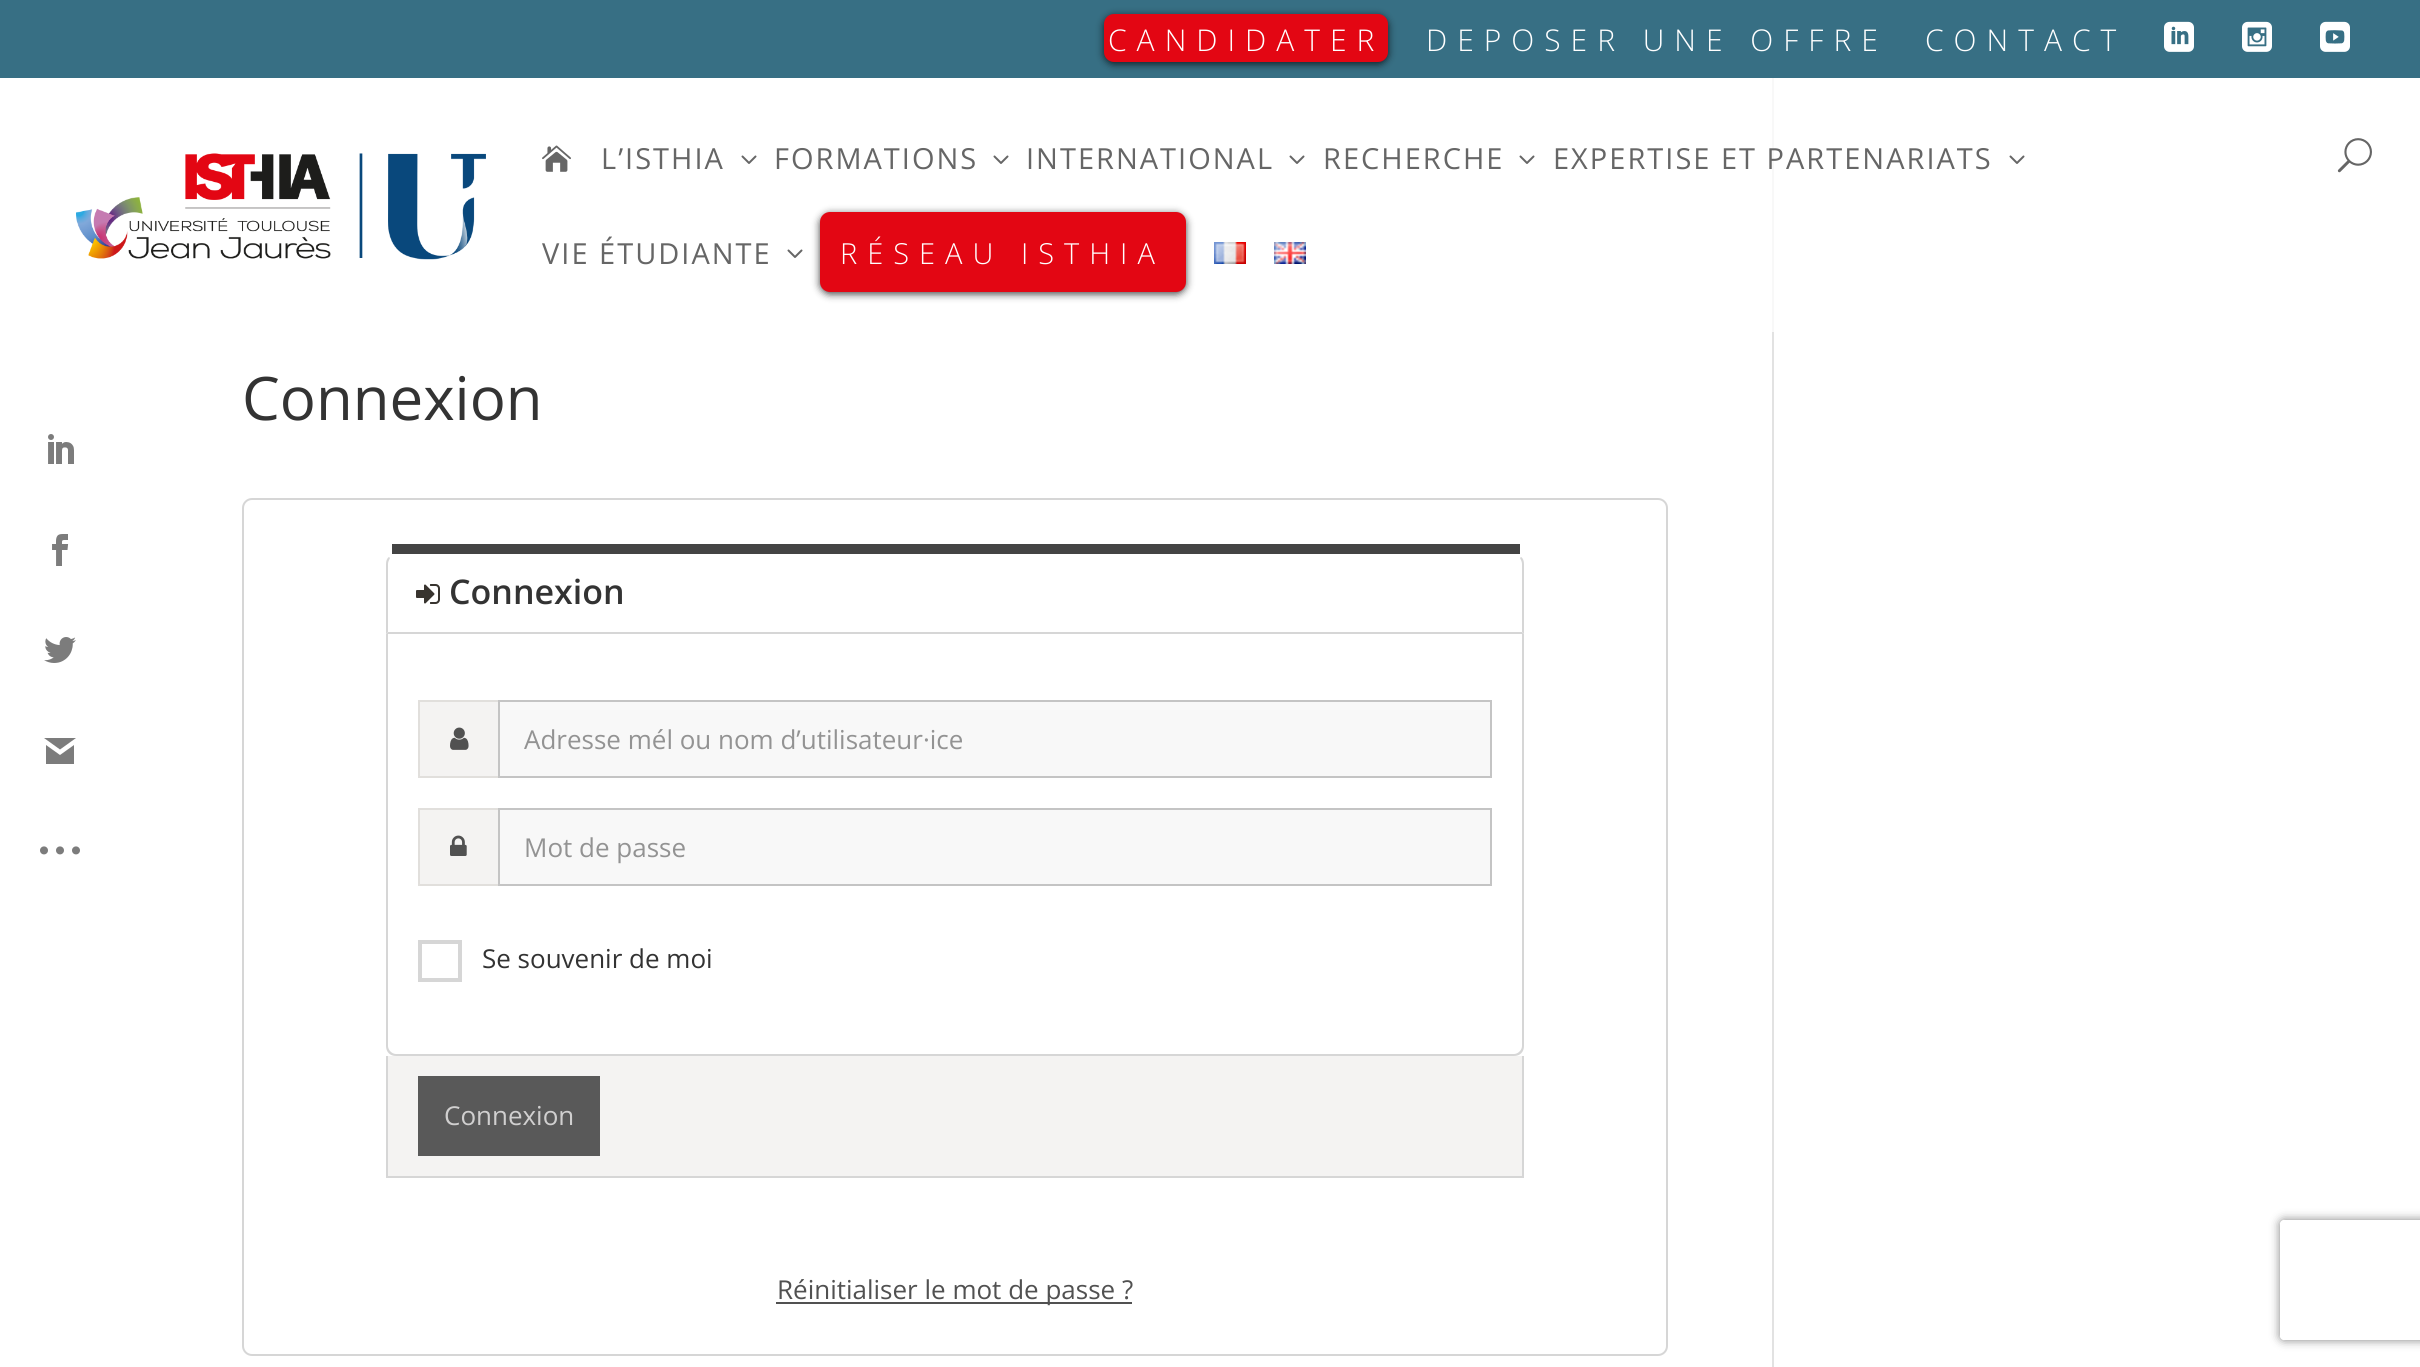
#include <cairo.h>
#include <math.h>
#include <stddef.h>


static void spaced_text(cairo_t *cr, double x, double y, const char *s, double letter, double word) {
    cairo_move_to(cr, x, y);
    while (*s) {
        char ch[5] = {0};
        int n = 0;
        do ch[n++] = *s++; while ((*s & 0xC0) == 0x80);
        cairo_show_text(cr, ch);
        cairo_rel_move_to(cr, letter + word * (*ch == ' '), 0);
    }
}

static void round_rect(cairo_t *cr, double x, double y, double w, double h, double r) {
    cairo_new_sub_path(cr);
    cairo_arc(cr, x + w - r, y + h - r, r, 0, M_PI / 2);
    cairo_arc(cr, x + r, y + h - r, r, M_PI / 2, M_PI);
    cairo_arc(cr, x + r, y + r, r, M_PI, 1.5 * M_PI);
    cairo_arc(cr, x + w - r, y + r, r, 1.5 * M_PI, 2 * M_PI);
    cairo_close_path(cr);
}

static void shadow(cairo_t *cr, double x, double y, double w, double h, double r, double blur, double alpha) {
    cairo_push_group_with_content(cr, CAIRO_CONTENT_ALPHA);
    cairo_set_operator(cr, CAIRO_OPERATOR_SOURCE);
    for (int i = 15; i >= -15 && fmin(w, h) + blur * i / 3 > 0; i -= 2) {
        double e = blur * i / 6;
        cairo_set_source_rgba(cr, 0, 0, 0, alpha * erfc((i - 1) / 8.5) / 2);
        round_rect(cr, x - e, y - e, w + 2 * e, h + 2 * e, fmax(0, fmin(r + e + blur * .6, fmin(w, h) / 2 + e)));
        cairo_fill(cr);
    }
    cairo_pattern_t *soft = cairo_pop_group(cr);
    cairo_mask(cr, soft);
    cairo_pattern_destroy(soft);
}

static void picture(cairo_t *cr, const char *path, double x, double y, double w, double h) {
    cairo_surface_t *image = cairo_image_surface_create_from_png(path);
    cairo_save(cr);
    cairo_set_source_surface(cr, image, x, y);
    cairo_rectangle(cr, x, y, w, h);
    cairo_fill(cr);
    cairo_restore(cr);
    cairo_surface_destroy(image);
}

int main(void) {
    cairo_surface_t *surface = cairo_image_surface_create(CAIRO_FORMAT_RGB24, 2420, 1367);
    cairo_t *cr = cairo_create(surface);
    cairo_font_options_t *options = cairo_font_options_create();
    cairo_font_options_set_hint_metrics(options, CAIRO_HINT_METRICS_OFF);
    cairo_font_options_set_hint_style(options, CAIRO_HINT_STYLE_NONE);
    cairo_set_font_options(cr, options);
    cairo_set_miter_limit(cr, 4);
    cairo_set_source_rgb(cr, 1, 1, 1);
    cairo_paint(cr);
    cairo_set_source_rgb(cr, 0.216, 0.435, 0.518);
    cairo_rectangle(cr, 0, 0, 2420, 78);
    cairo_fill(cr);
    picture(cr, "img1.png", 48, 434, 26, 30);
    picture(cr, "img2.png", 52, 534, 17, 32);
    picture(cr, "img3.png", 44, 637, 32, 26);
    cairo_set_source_rgb(cr, 0.486, 0.486, 0.486);
    cairo_new_path(cr);
    cairo_move_to(cr, 76, 738);
    cairo_line_to(cr, 44, 738);
    cairo_line_to(cr, 60, 749.5);
    cairo_close_path(cr);
    cairo_move_to(cr, 60, 755);
    cairo_line_to(cr, 46, 745);
    cairo_line_to(cr, 46, 764);
    cairo_line_to(cr, 74, 764);
    cairo_line_to(cr, 74, 745);
    cairo_close_path(cr);
    cairo_fill(cr);
    picture(cr, "img4.png", 40, 846, 40, 9);
    cairo_set_source_rgb(cr, 0, 0, 0);
    shadow(cr, 1104, 16, 284, 48, 10, 4, 0.75);
    cairo_set_source_rgb(cr, 0.89, 0.024, 0.075);
    round_rect(cr, 1104, 14, 284, 48, 10);
    cairo_fill(cr);
    cairo_select_font_face(cr, "Open Sans Light", CAIRO_FONT_SLANT_NORMAL, CAIRO_FONT_WEIGHT_NORMAL);
    cairo_set_font_size(cr, 30);
    cairo_set_source_rgb(cr, 1, 1, 1);
    spaced_text(cr, 1108, 51, "CANDIDATER", 10, 0);
    spaced_text(cr, 1426, 51, "DEPOSER UNE OFFRE", 10, 0);
    spaced_text(cr, 1925, 51, "CONTACT", 10, 0);
    picture(cr, "img5.png", 2164, 21, 30, 31);
    picture(cr, "img6.png", 2242, 21, 30, 31);
    picture(cr, "img7.png", 2320, 21, 30, 31);
    picture(cr, "img8.png", 76, 153, 410, 107);
    picture(cr, "img9.png", 542, 145, 29, 27);
    cairo_select_font_face(cr, "Open Sans", CAIRO_FONT_SLANT_NORMAL, CAIRO_FONT_WEIGHT_NORMAL);
    cairo_set_font_size(cr, 29);
    cairo_set_source_rgb(cr, 0.4, 0.4, 0.4);
    spaced_text(cr, 601, 169, "L’ISTHIA", 2, 0);
    picture(cr, "img10.png", 741, 155, 16, 9);
    spaced_text(cr, 774, 169, "FORMATIONS", 2, 0);
    picture(cr, "img10.png", 993, 155, 16, 9);
    spaced_text(cr, 1026, 169, "INTERNATIONAL", 2, 0);
    picture(cr, "img10.png", 1289, 155, 16, 9);
    spaced_text(cr, 1323, 169, "RECHERCHE", 2, 0);
    picture(cr, "img10.png", 1519, 155, 16, 9);
    cairo_set_source_rgb(cr, 0.969, 0.969, 0.969);
    cairo_rectangle(cr, 1772, 78, 2, 254);
    cairo_fill(cr);
    cairo_set_source_rgb(cr, 0.4, 0.4, 0.4);
    spaced_text(cr, 1553, 169, "EXPERTISE ET PARTENARIATS", 2, 0);
    picture(cr, "img10.png", 2009, 155, 16, 9);
    spaced_text(cr, 542, 264, "VIE ÉTUDIANTE", 2, 0);
    picture(cr, "img10.png", 787, 249, 16, 9);
    cairo_set_source_rgb(cr, 0, 0, 0);
    shadow(cr, 820, 214, 366, 80, 10, 4, 0.75);
    cairo_set_source_rgb(cr, 0.89, 0.024, 0.075);
    round_rect(cr, 820, 212, 366, 80, 10);
    cairo_fill(cr);
    cairo_select_font_face(cr, "Open Sans Light", CAIRO_FONT_SLANT_NORMAL, CAIRO_FONT_WEIGHT_NORMAL);
    cairo_set_source_rgb(cr, 1, 1, 1);
    spaced_text(cr, 840, 264, "RÉSEAU ISTHIA", 10, 0);
    picture(cr, "img11.png", 1214, 242, 32, 22);
    picture(cr, "img12.png", 1274, 242, 32, 22);
    picture(cr, "img13.png", 2337, 138, 35, 35);
    cairo_select_font_face(cr, "Open Sans", CAIRO_FONT_SLANT_NORMAL, CAIRO_FONT_WEIGHT_NORMAL);
    cairo_set_font_size(cr, 60);
    cairo_set_source_rgb(cr, 0.2, 0.2, 0.2);
    cairo_move_to(cr, 242, 420);
    cairo_show_text(cr, "Connexion");
    round_rect(cr, 243, 499, 1424, 856, 9);
    cairo_set_source_rgb(cr, 0.839, 0.839, 0.839);
    cairo_stroke(cr);
    cairo_set_source_rgb(cr, 0.267, 0.267, 0.267);
    cairo_rectangle(cr, 392, 544, 1128, 10);
    cairo_fill(cr);
    cairo_set_source_rgb(cr, 0.839, 0.839, 0.839);
    cairo_new_path(cr);
    cairo_move_to(cr, 1524, 634);
    cairo_line_to(cr, 1524, 564);
    cairo_curve_to(cr, 1524, 561, 1523, 558, 1521, 557);
    cairo_line_to(cr, 1520, 558);
    cairo_curve_to(cr, 1521, 560, 1522, 562, 1522, 564);
    cairo_line_to(cr, 1522, 632);
    cairo_close_path(cr);
    cairo_fill(cr);
    cairo_new_path(cr);
    cairo_move_to(cr, 1524, 634);
    cairo_line_to(cr, 1522, 632);
    cairo_line_to(cr, 388, 632);
    cairo_line_to(cr, 386, 634);
    cairo_close_path(cr);
    cairo_fill(cr);
    cairo_new_path(cr);
    cairo_move_to(cr, 386, 634);
    cairo_line_to(cr, 388, 632);
    cairo_line_to(cr, 388, 564);
    cairo_curve_to(cr, 388, 562, 389, 560, 390, 558);
    cairo_line_to(cr, 389, 557);
    cairo_curve_to(cr, 387, 558, 386, 561, 386, 564);
    cairo_close_path(cr);
    cairo_fill(cr);
    picture(cr, "img14.png", 416, 584, 24, 20);
    cairo_select_font_face(cr, "Open Sans SemiBold", CAIRO_FONT_SLANT_NORMAL, CAIRO_FONT_WEIGHT_NORMAL);
    cairo_set_font_size(cr, 34);
    cairo_set_source_rgb(cr, 0.2, 0.2, 0.2);
    cairo_move_to(cr, 449, 604);
    cairo_show_text(cr, "Connexion");
    cairo_set_source_rgb(cr, 0.839, 0.839, 0.839);
    cairo_set_fill_rule(cr, CAIRO_FILL_RULE_EVEN_ODD);
    cairo_new_path(cr);
    cairo_move_to(cr, 386, 634);
    cairo_line_to(cr, 1524, 634);
    cairo_line_to(cr, 1524, 1046);
    cairo_curve_to(cr, 1524, 1052, 1520, 1056, 1514, 1056);
    cairo_line_to(cr, 396, 1056);
    cairo_curve_to(cr, 390, 1056, 386, 1052, 386, 1046);
    cairo_close_path(cr);
    cairo_move_to(cr, 388, 634);
    cairo_line_to(cr, 1522, 634);
    cairo_line_to(cr, 1522, 1046);
    cairo_curve_to(cr, 1522, 1050, 1518, 1054, 1514, 1054);
    cairo_line_to(cr, 396, 1054);
    cairo_curve_to(cr, 392, 1054, 388, 1050, 388, 1046);
    cairo_close_path(cr);
    cairo_fill(cr);
    cairo_set_source_rgb(cr, 0.957, 0.953, 0.949);
    cairo_rectangle(cr, 420, 702, 78, 74);
    cairo_fill(cr);
    cairo_set_source_rgb(cr, 0.882, 0.875, 0.863);
    cairo_rectangle(cr, 418, 700, 80, 2);
    cairo_fill(cr);
    cairo_rectangle(cr, 418, 776, 80, 2);
    cairo_fill(cr);
    cairo_rectangle(cr, 418, 700, 2, 78);
    cairo_fill(cr);
    picture(cr, "img15.png", 450, 727, 19, 23);
    cairo_set_source_rgb(cr, 0.969, 0.969, 0.969);
    cairo_rectangle(cr, 499, 701, 992, 76);
    cairo_fill_preserve(cr);
    cairo_set_source_rgb(cr, 0.769, 0.769, 0.769);
    cairo_stroke(cr);
    cairo_select_font_face(cr, "Open Sans", CAIRO_FONT_SLANT_NORMAL, CAIRO_FONT_WEIGHT_NORMAL);
    cairo_set_font_size(cr, 26);
    cairo_set_source_rgb(cr, 0.576, 0.576, 0.576);
    cairo_move_to(cr, 524, 749);
    cairo_show_text(cr, "Adresse mél ou nom d’utilisateur·ice");
    cairo_set_source_rgb(cr, 0.957, 0.953, 0.949);
    cairo_rectangle(cr, 420, 810, 78, 74);
    cairo_fill(cr);
    cairo_set_source_rgb(cr, 0.882, 0.875, 0.863);
    cairo_rectangle(cr, 418, 808, 80, 2);
    cairo_fill(cr);
    cairo_rectangle(cr, 418, 884, 80, 2);
    cairo_fill(cr);
    cairo_rectangle(cr, 418, 808, 2, 78);
    cairo_fill(cr);
    picture(cr, "img16.png", 450, 835, 17, 21);
    cairo_set_source_rgb(cr, 0.969, 0.969, 0.969);
    cairo_rectangle(cr, 499, 809, 992, 76);
    cairo_fill_preserve(cr);
    cairo_set_source_rgb(cr, 0.769, 0.769, 0.769);
    cairo_stroke(cr);
    cairo_set_source_rgb(cr, 0.576, 0.576, 0.576);
    cairo_move_to(cr, 524, 857);
    cairo_show_text(cr, "Mot de passe");
    cairo_rectangle(cr, 420, 942, 40, 38);
    cairo_set_source_rgb(cr, 0.839, 0.839, 0.839);
    cairo_set_line_width(cr, 4);
    cairo_stroke(cr);
    cairo_set_source_rgb(cr, 0.2, 0.2, 0.2);
    cairo_move_to(cr, 482, 968);
    cairo_show_text(cr, "Se souvenir de moi");
    cairo_set_source_rgb(cr, 0.957, 0.953, 0.949);
    cairo_rectangle(cr, 388, 1056, 1134, 120);
    cairo_fill(cr);
    cairo_set_source_rgb(cr, 0.839, 0.839, 0.839);
    cairo_rectangle(cr, 1522, 1056, 2, 122);
    cairo_fill(cr);
    cairo_rectangle(cr, 388, 1176, 1136, 2);
    cairo_fill(cr);
    cairo_rectangle(cr, 386, 1056, 2, 122);
    cairo_fill(cr);
    cairo_set_source_rgb(cr, 0.349, 0.349, 0.349);
    cairo_rectangle(cr, 418, 1076, 182, 80);
    cairo_fill(cr);
    cairo_set_source_rgb(cr, 0.816, 0.812, 0.812);
    cairo_move_to(cr, 444, 1125);
    cairo_show_text(cr, "Connexion");
    cairo_set_source_rgb(cr, 0.318, 0.318, 0.318);
    cairo_rectangle(cr, 776, 1302, 356, 2);
    cairo_fill(cr);
    cairo_move_to(cr, 777, 1299);
    cairo_show_text(cr, "Réinitialiser le mot de passe ?");
    cairo_set_source_rgb(cr, 0.886, 0.886, 0.886);
    cairo_rectangle(cr, 1772, 332, 2, 1035);
    cairo_fill(cr);
    cairo_save(cr);
    cairo_new_path(cr);
    cairo_move_to(cr, 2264, 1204);
    cairo_line_to(cr, 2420, 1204);
    cairo_line_to(cr, 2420, 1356);
    cairo_line_to(cr, 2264, 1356);
    cairo_close_path(cr);
    cairo_move_to(cr, 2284, 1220);
    cairo_line_to(cr, 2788, 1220);
    cairo_curve_to(cr, 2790, 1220, 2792, 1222, 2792, 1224);
    cairo_line_to(cr, 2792, 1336);
    cairo_curve_to(cr, 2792, 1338, 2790, 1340, 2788, 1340);
    cairo_line_to(cr, 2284, 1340);
    cairo_curve_to(cr, 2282, 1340, 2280, 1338, 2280, 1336);
    cairo_line_to(cr, 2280, 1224);
    cairo_curve_to(cr, 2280, 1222, 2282, 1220, 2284, 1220);
    cairo_close_path(cr);
    cairo_clip(cr);
    cairo_set_source_rgb(cr, 0.502, 0.502, 0.502);
    shadow(cr, 2280, 1220, 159, 120, 4, 5, 1);
    cairo_restore(cr);
    cairo_surface_write_to_png(surface, "page.png");
    cairo_font_options_destroy(options);
    cairo_destroy(cr);
    cairo_surface_destroy(surface);
    return 0;
}
